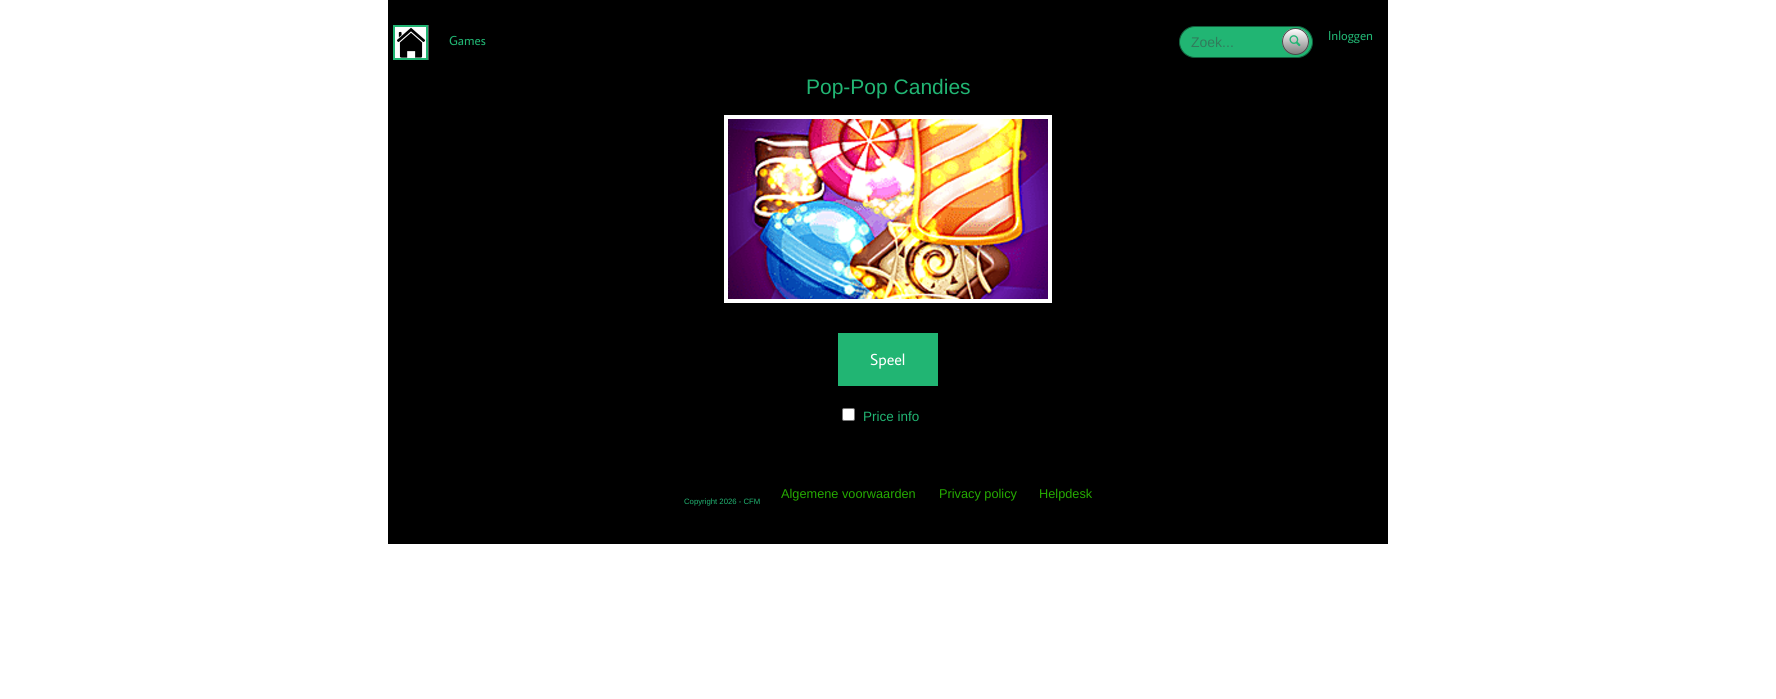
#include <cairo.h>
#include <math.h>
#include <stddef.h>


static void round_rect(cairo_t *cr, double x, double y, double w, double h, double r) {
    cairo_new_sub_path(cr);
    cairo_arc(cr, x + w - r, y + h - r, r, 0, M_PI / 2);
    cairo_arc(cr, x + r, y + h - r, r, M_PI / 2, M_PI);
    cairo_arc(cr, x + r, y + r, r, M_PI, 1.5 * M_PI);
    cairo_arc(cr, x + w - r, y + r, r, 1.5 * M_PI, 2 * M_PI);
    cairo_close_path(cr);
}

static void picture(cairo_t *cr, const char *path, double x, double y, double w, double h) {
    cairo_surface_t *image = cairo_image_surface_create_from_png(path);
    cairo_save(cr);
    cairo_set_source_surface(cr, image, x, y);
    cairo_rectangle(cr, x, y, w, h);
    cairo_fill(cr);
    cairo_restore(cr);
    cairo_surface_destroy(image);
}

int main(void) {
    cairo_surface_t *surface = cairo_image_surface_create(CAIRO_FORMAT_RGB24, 1776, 699);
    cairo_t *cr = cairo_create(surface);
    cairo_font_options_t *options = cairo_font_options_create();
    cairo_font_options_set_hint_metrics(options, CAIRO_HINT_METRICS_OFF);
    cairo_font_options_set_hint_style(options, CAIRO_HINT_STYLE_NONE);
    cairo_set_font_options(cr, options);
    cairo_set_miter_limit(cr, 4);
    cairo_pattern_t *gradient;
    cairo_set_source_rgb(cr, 1, 1, 1);
    cairo_paint(cr);
    cairo_set_source_rgb(cr, 0, 0, 0);
    cairo_rectangle(cr, 388, 0, 1000, 544);
    cairo_fill(cr);
    cairo_set_source_rgb(cr, 1, 1, 1);
    cairo_rectangle(cr, 394, 26, 33, 33);
    cairo_fill_preserve(cr);
    cairo_set_source_rgb(cr, 0.129, 0.71, 0.451);
    cairo_stroke(cr);
    picture(cr, "img1.png", 397, 27, 28, 31);
    cairo_set_source_rgb(cr, 0.306, 0.306, 0.306);
    cairo_rectangle(cr, 428, 25, 1, 35);
    cairo_fill(cr);
    cairo_select_font_face(cr, "Average Sans", CAIRO_FONT_SLANT_NORMAL, CAIRO_FONT_WEIGHT_NORMAL);
    cairo_set_font_size(cr, 13);
    cairo_set_source_rgb(cr, 0.129, 0.71, 0.451);
    cairo_move_to(cr, 449, 45);
    cairo_show_text(cr, "Games");
    round_rect(cr, 1179.5, 26.5, 133, 31, 15.5);
    cairo_fill_preserve(cr);
    cairo_set_source_rgb(cr, 0.067, 0.373, 0.235);
    cairo_set_line_width(cr, 1);
    cairo_stroke(cr);
    cairo_select_font_face(cr, "Liberation Sans", CAIRO_FONT_SLANT_NORMAL, CAIRO_FONT_WEIGHT_NORMAL);
    cairo_set_font_size(cr, 14);
    cairo_set_source_rgb(cr, 0.192, 0.482, 0.357);
    cairo_move_to(cr, 1191, 47);
    cairo_show_text(cr, "Zoek...");
    cairo_save(cr);
    round_rect(cr, 1282, 28, 27, 27, 13.5);
    cairo_clip(cr);
    gradient = cairo_pattern_create_linear(1296, 29, 1296, 54);
    cairo_pattern_add_color_stop_rgba(gradient, 0, 1, 1, 1, 1);
    cairo_pattern_add_color_stop_rgba(gradient, 1, 0.502, 0.502, 0.502, 1);
    cairo_set_source(cr, gradient);
    cairo_pattern_destroy(gradient);
    cairo_rectangle(cr, 1282, 29, 27, 25);
    cairo_fill(cr);
    cairo_restore(cr);
    cairo_arc(cr, 1295.5, 41.5, 13, 0, 2 * M_PI);
    cairo_set_source_rgb(cr, 0.286, 0.286, 0.286);
    cairo_stroke(cr);
    picture(cr, "img2.png", 1289, 35, 12, 12);
    cairo_select_font_face(cr, "Average Sans", CAIRO_FONT_SLANT_NORMAL, CAIRO_FONT_WEIGHT_NORMAL);
    cairo_set_font_size(cr, 13);
    cairo_set_source_rgb(cr, 0.129, 0.71, 0.451);
    cairo_move_to(cr, 1328, 40);
    cairo_show_text(cr, "Inloggen");
    cairo_select_font_face(cr, "Liberation Sans", CAIRO_FONT_SLANT_NORMAL, CAIRO_FONT_WEIGHT_NORMAL);
    cairo_set_font_size(cr, 21);
    cairo_move_to(cr, 806, 94);
    cairo_show_text(cr, "Pop-Pop Candies");
    cairo_rectangle(cr, 726, 117, 324, 184);
    cairo_set_source_rgb(cr, 1, 1, 1);
    cairo_set_line_width(cr, 4);
    cairo_stroke(cr);
    picture(cr, "img3.png", 728, 119, 320, 180);
    cairo_set_source_rgb(cr, 0.129, 0.71, 0.451);
    cairo_rectangle(cr, 838, 333, 100, 53);
    cairo_fill(cr);
    cairo_select_font_face(cr, "Average Sans", CAIRO_FONT_SLANT_NORMAL, CAIRO_FONT_WEIGHT_NORMAL);
    cairo_set_font_size(cr, 16);
    cairo_set_source_rgb(cr, 1, 1, 1);
    cairo_move_to(cr, 870, 365);
    cairo_show_text(cr, "Speel");
    round_rect(cr, 842.5, 408.5, 12, 12, 1.5);
    cairo_fill_preserve(cr);
    cairo_set_source_rgb(cr, 0.463, 0.463, 0.463);
    cairo_set_line_width(cr, 1);
    cairo_stroke(cr);
    cairo_select_font_face(cr, "Liberation Sans", CAIRO_FONT_SLANT_NORMAL, CAIRO_FONT_WEIGHT_NORMAL);
    cairo_set_font_size(cr, 13.5);
    cairo_set_source_rgb(cr, 0.129, 0.71, 0.451);
    cairo_move_to(cr, 863, 421);
    cairo_show_text(cr, "Price info");
    cairo_set_font_size(cr, 12.75);
    cairo_set_source_rgb(cr, 0.145, 0.671, 0.004);
    cairo_move_to(cr, 781, 498);
    cairo_show_text(cr, "Algemene voorwaarden");
    cairo_move_to(cr, 939, 498);
    cairo_show_text(cr, "Privacy policy");
    cairo_move_to(cr, 1039, 498);
    cairo_show_text(cr, "Helpdesk");
    cairo_set_font_size(cr, 7.75);
    cairo_set_source_rgb(cr, 0.129, 0.71, 0.451);
    cairo_move_to(cr, 684, 504);
    cairo_show_text(cr, "Copyright 2026 - CFM");
    cairo_surface_write_to_png(surface, "page.png");
    cairo_font_options_destroy(options);
    cairo_destroy(cr);
    cairo_surface_destroy(surface);
    return 0;
}
